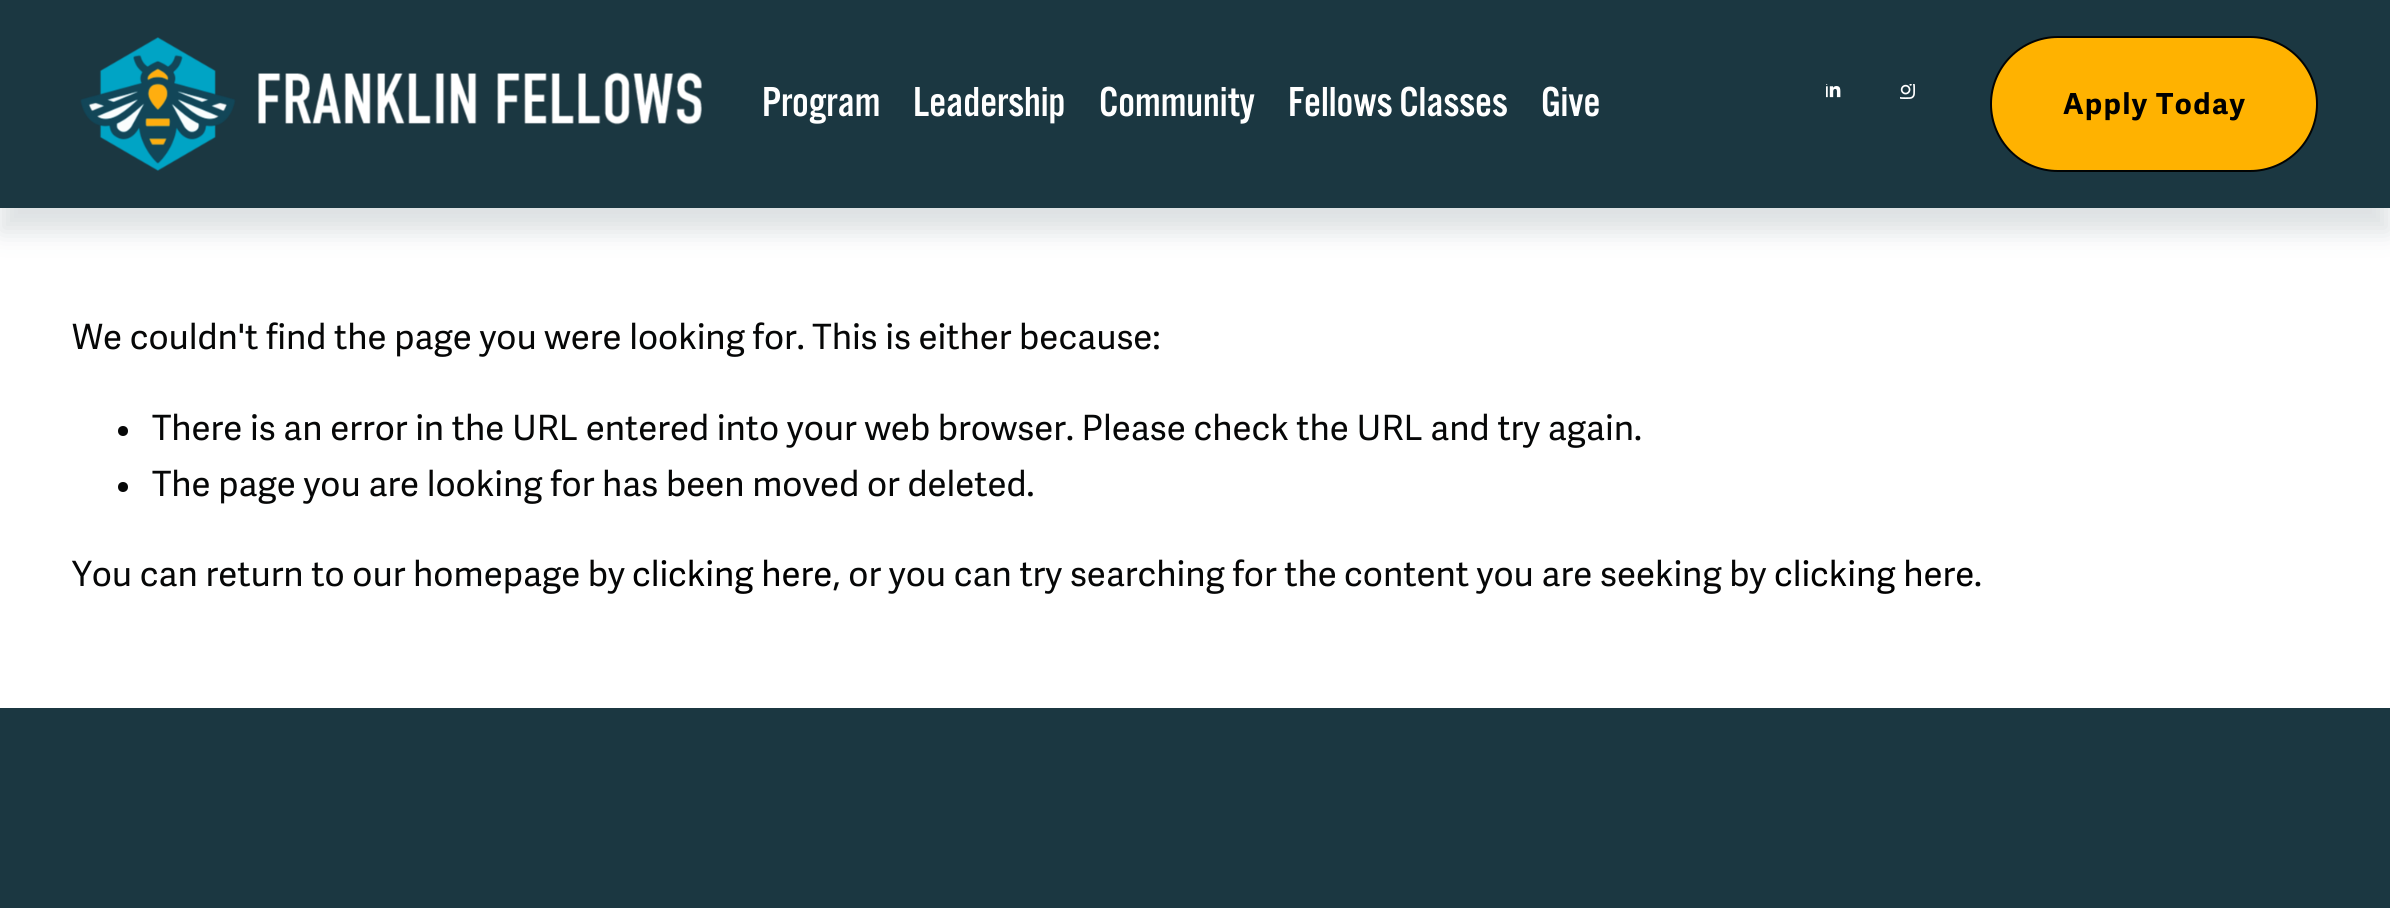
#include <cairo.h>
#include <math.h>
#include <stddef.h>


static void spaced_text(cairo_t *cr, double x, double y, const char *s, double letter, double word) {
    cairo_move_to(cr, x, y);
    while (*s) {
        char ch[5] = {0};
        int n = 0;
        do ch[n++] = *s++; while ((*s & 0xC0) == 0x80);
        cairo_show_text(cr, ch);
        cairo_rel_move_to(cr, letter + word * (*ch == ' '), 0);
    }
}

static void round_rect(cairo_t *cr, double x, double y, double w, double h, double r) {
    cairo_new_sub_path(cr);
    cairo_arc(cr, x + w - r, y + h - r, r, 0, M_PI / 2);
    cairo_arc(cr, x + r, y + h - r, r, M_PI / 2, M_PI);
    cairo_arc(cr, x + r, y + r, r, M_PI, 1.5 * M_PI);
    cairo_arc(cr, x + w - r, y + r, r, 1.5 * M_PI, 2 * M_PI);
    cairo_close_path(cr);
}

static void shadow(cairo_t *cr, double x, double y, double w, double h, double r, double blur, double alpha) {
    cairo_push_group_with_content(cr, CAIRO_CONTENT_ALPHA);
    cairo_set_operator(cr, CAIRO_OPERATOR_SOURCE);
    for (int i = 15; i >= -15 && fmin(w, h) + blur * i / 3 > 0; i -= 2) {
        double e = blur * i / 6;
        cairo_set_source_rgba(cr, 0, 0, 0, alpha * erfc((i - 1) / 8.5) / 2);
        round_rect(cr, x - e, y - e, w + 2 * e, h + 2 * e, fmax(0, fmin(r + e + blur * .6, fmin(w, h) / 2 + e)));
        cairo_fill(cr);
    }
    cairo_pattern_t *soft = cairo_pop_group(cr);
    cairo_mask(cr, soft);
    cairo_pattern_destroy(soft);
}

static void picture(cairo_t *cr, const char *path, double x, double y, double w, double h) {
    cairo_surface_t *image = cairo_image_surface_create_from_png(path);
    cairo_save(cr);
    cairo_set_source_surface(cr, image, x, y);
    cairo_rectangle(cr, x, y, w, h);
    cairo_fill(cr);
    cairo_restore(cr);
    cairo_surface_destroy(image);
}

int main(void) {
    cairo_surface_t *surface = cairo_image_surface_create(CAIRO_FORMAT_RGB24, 2390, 908);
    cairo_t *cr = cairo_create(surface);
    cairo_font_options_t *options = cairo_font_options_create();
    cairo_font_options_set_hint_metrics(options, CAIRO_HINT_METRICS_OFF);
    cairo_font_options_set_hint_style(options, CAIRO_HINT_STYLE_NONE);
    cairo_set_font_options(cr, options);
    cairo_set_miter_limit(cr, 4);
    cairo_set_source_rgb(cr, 1, 1, 1);
    cairo_paint(cr);
    cairo_set_source_rgb(cr, 0.867, 0.882, 0.89);
    shadow(cr, 0, 24, 2390, 208, 0, 12, 1);
    cairo_set_source_rgb(cr, 0.106, 0.216, 0.255);
    cairo_rectangle(cr, 0, 0, 2390, 208);
    cairo_fill(cr);
    picture(cr, "img1.png", 80, 37, 622, 134);
    cairo_select_font_face(cr, "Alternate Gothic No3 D", CAIRO_FONT_SLANT_NORMAL, CAIRO_FONT_WEIGHT_NORMAL);
    cairo_set_font_size(cr, 43.5);
    cairo_set_source_rgb(cr, 1, 1, 1);
    cairo_move_to(cr, 762, 116);
    cairo_show_text(cr, "Program");
    cairo_move_to(cr, 913, 116);
    cairo_show_text(cr, "Leadership");
    cairo_move_to(cr, 1099, 116);
    cairo_show_text(cr, "Community");
    cairo_move_to(cr, 1288, 116);
    cairo_show_text(cr, "Fellows Classes");
    cairo_move_to(cr, 1541, 116);
    cairo_show_text(cr, "Give");
    picture(cr, "img2.png", 1826, 84, 15, 14);
    picture(cr, "img3.png", 1900, 84, 15, 15);
    cairo_set_source_rgb(cr, 1, 0.698, 0);
    round_rect(cr, 1991, 37, 326, 134, 67);
    cairo_fill_preserve(cr);
    cairo_set_source_rgb(cr, 0.004, 0.012, 0.016);
    cairo_stroke(cr);
    cairo_select_font_face(cr, "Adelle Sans", CAIRO_FONT_SLANT_NORMAL, CAIRO_FONT_WEIGHT_BOLD);
    cairo_set_font_size(cr, 29);
    cairo_set_source_rgb(cr, 0, 0, 0);
    spaced_text(cr, 2063, 114, "Apply Today", 1.5, 0);
    cairo_select_font_face(cr, "Adelle Sans", CAIRO_FONT_SLANT_NORMAL, CAIRO_FONT_WEIGHT_NORMAL);
    cairo_set_font_size(cr, 34.85);
    cairo_set_source_rgb(cr, 0.027, 0.031, 0.031);
    cairo_move_to(cr, 72, 349);
    cairo_show_text(cr, "We couldn't find the page you were looking for. This is either because:");
    cairo_new_path(cr);
    cairo_arc(cr, 123, 431, 5, 0, 2 * M_PI);
    cairo_fill(cr);
    cairo_move_to(cr, 152, 440);
    cairo_show_text(cr, "There is an error in the URL entered into your web browser. Please check the URL and try again.");
    cairo_new_path(cr);
    cairo_arc(cr, 123, 487, 5, 0, 2 * M_PI);
    cairo_fill(cr);
    cairo_move_to(cr, 152, 496);
    cairo_show_text(cr, "The page you are looking for has been moved or deleted.");
    cairo_move_to(cr, 72, 586);
    cairo_show_text(cr, "You can return to our homepage by");
    cairo_set_source_rgb(cr, 0, 0, 0);
    cairo_move_to(cr, 632, 586);
    cairo_show_text(cr, "clicking here");
    cairo_set_source_rgb(cr, 0.027, 0.031, 0.031);
    cairo_move_to(cr, 833, 586);
    cairo_show_text(cr, ", or you can try searching for the");
    cairo_move_to(cr, 1344, 586);
    cairo_show_text(cr, "content you are seeking by");
    cairo_set_source_rgb(cr, 0, 0, 0);
    cairo_move_to(cr, 1774, 586);
    cairo_show_text(cr, "clicking here");
    cairo_set_source_rgb(cr, 0.027, 0.031, 0.031);
    cairo_move_to(cr, 1974, 586);
    cairo_show_text(cr, ".");
    cairo_set_source_rgb(cr, 0.106, 0.216, 0.255);
    cairo_rectangle(cr, 0, 708, 2390, 200);
    cairo_fill(cr);
    cairo_surface_write_to_png(surface, "page.png");
    cairo_font_options_destroy(options);
    cairo_destroy(cr);
    cairo_surface_destroy(surface);
    return 0;
}
